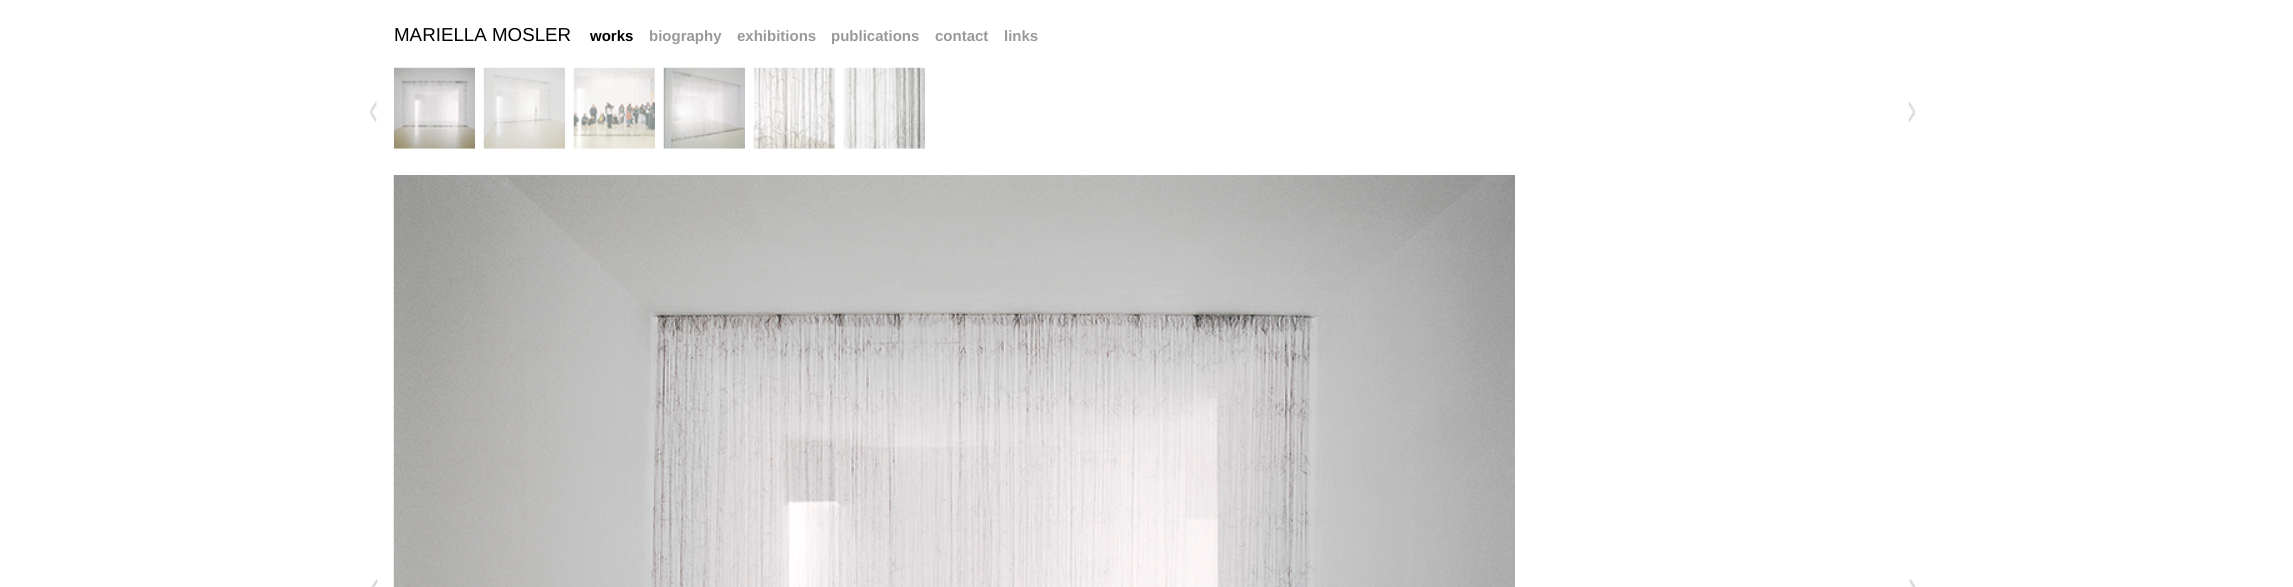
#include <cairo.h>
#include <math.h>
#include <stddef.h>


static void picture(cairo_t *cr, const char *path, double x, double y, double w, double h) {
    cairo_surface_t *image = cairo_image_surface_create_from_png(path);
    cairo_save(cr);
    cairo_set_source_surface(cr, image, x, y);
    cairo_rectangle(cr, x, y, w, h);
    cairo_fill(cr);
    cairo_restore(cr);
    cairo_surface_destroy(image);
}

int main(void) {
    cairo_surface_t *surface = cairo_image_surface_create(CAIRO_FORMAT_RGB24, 2293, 587);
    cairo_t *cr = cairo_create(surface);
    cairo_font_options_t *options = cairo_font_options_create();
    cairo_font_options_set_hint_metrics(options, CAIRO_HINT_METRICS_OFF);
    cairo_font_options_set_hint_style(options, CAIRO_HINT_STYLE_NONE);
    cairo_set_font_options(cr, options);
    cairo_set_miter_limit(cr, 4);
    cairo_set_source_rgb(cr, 1, 1, 1);
    cairo_paint(cr);
    cairo_select_font_face(cr, "Liberation Sans", CAIRO_FONT_SLANT_NORMAL, CAIRO_FONT_WEIGHT_NORMAL);
    cairo_set_font_size(cr, 18.75);
    cairo_set_source_rgb(cr, 0, 0, 0);
    cairo_move_to(cr, 394, 41);
    cairo_show_text(cr, "MARIELLA MOSLER");
    cairo_select_font_face(cr, "Liberation Sans", CAIRO_FONT_SLANT_NORMAL, CAIRO_FONT_WEIGHT_BOLD);
    cairo_set_font_size(cr, 15);
    cairo_move_to(cr, 590, 41);
    cairo_show_text(cr, "works");
    cairo_set_source_rgb(cr, 0.6, 0.6, 0.6);
    cairo_move_to(cr, 649, 41);
    cairo_show_text(cr, "biography");
    cairo_move_to(cr, 737, 41);
    cairo_show_text(cr, "exhibitions");
    cairo_move_to(cr, 831, 41);
    cairo_show_text(cr, "publications");
    cairo_move_to(cr, 935, 41);
    cairo_show_text(cr, "contact");
    cairo_move_to(cr, 1004, 41);
    cairo_show_text(cr, "links");
    picture(cr, "img1.png", 393, 67, 82, 82);
    picture(cr, "img2.png", 483, 67, 82, 82);
    picture(cr, "img3.png", 573, 67, 82, 82);
    picture(cr, "img4.png", 663, 67, 82, 82);
    picture(cr, "img5.png", 753, 67, 82, 82);
    picture(cr, "img6.png", 843, 67, 82, 82);
    picture(cr, "img7.png", 370, 101, 7, 22);
    picture(cr, "img8.png", 1908, 101, 7, 22);
    picture(cr, "img9.png", 393, 175, 1122, 412);
    picture(cr, "img10.png", 371, 579, 7, 8);
    picture(cr, "img11.png", 1909, 579, 7, 8);
    cairo_surface_write_to_png(surface, "page.png");
    cairo_font_options_destroy(options);
    cairo_destroy(cr);
    cairo_surface_destroy(surface);
    return 0;
}
